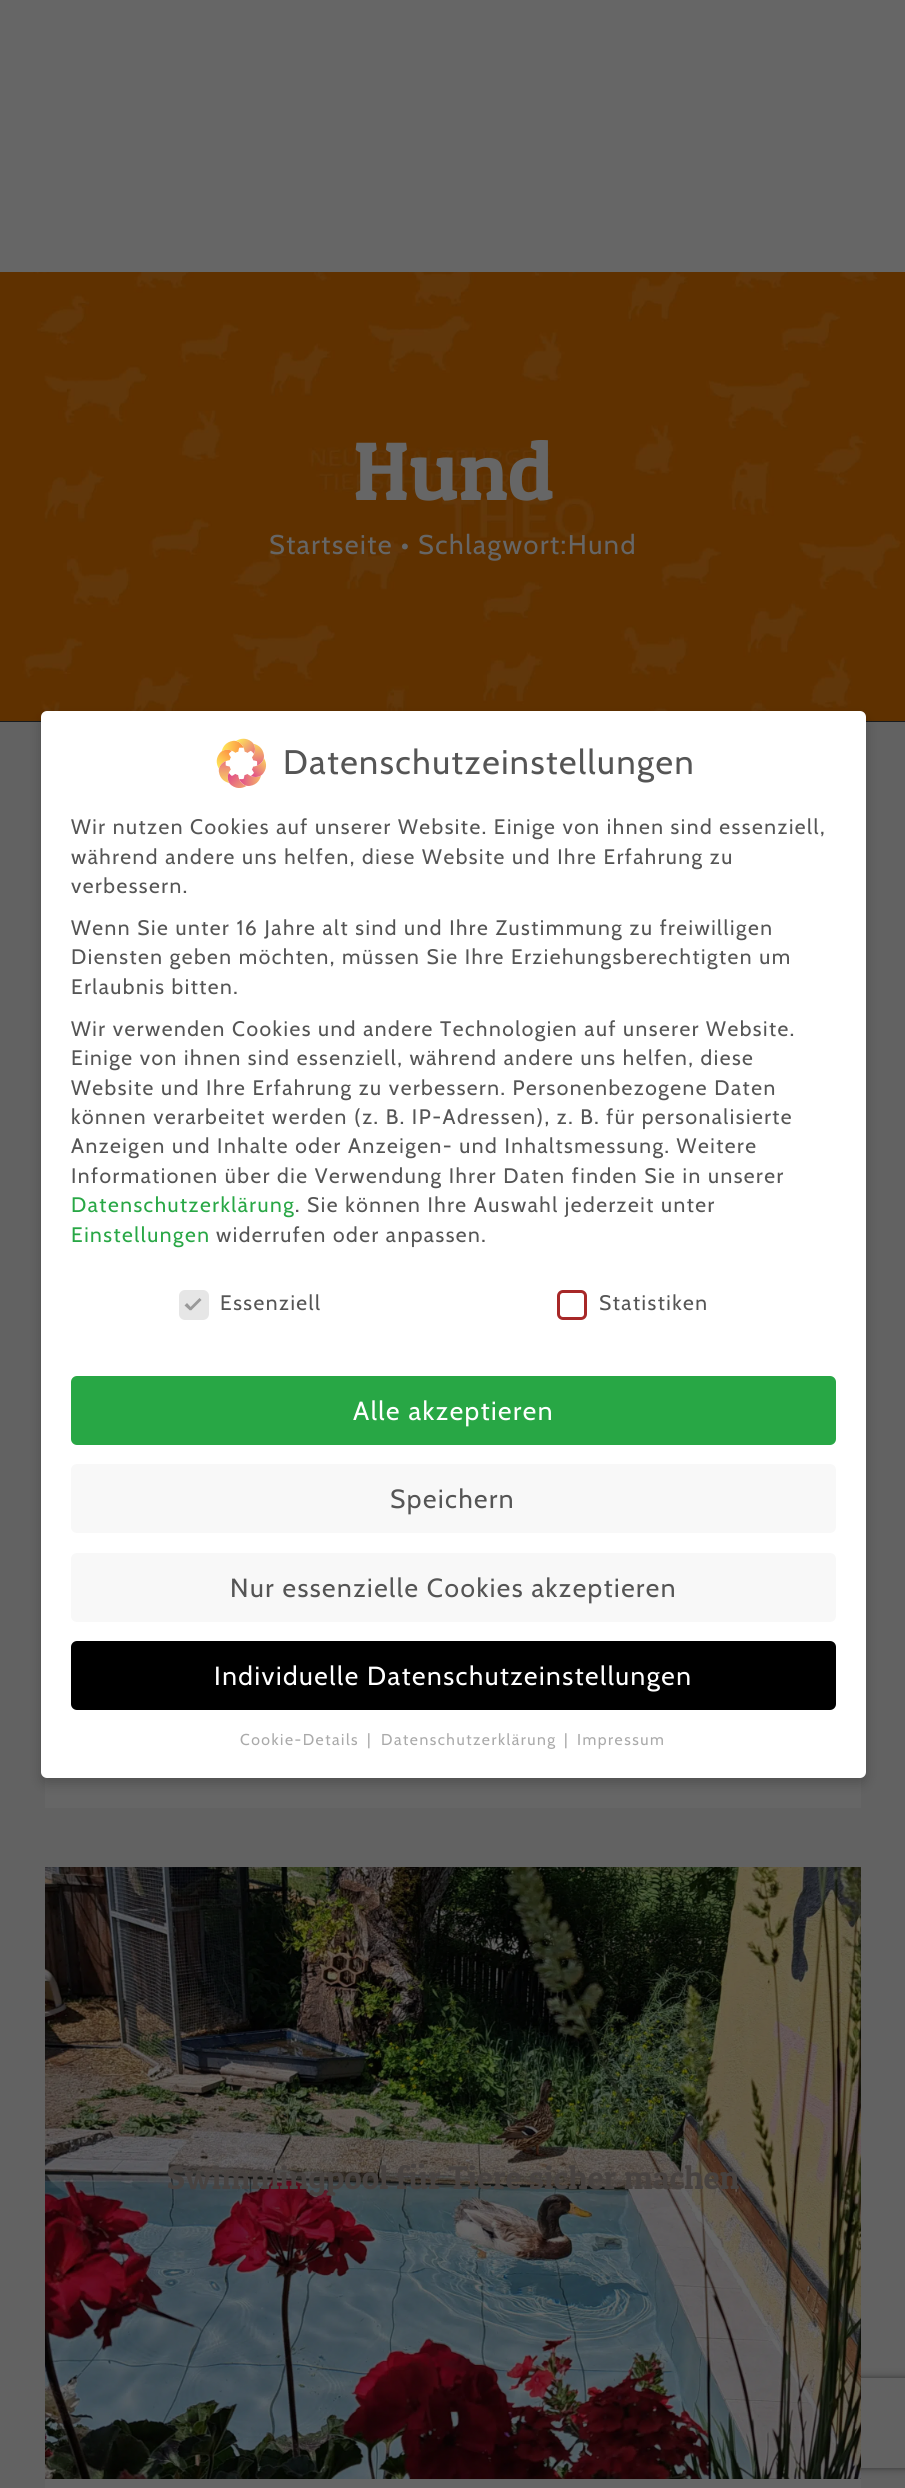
#include <cairo.h>
#include <math.h>
#include <stddef.h>


static void spaced_text(cairo_t *cr, double x, double y, const char *s, double letter, double word) {
    cairo_move_to(cr, x, y);
    while (*s) {
        char ch[5] = {0};
        int n = 0;
        do ch[n++] = *s++; while ((*s & 0xC0) == 0x80);
        cairo_show_text(cr, ch);
        cairo_rel_move_to(cr, letter + word * (*ch == ' '), 0);
    }
}

static void round_rect(cairo_t *cr, double x, double y, double w, double h, double r) {
    cairo_new_sub_path(cr);
    cairo_arc(cr, x + w - r, y + h - r, r, 0, M_PI / 2);
    cairo_arc(cr, x + r, y + h - r, r, M_PI / 2, M_PI);
    cairo_arc(cr, x + r, y + r, r, M_PI, 1.5 * M_PI);
    cairo_arc(cr, x + w - r, y + r, r, 1.5 * M_PI, 2 * M_PI);
    cairo_close_path(cr);
}

static void shadow(cairo_t *cr, double x, double y, double w, double h, double r, double blur, double alpha) {
    cairo_push_group_with_content(cr, CAIRO_CONTENT_ALPHA);
    cairo_set_operator(cr, CAIRO_OPERATOR_SOURCE);
    for (int i = 15; i >= -15 && fmin(w, h) + blur * i / 3 > 0; i -= 2) {
        double e = blur * i / 6;
        cairo_set_source_rgba(cr, 0, 0, 0, alpha * erfc((i - 1) / 8.5) / 2);
        round_rect(cr, x - e, y - e, w + 2 * e, h + 2 * e, fmax(0, fmin(r + e + blur * .6, fmin(w, h) / 2 + e)));
        cairo_fill(cr);
    }
    cairo_pattern_t *soft = cairo_pop_group(cr);
    cairo_mask(cr, soft);
    cairo_pattern_destroy(soft);
}

static void picture(cairo_t *cr, const char *path, double x, double y, double w, double h) {
    cairo_surface_t *image = cairo_image_surface_create_from_png(path);
    cairo_save(cr);
    cairo_set_source_surface(cr, image, x, y);
    cairo_rectangle(cr, x, y, w, h);
    cairo_fill(cr);
    cairo_restore(cr);
    cairo_surface_destroy(image);
}

int main(void) {
    cairo_surface_t *surface = cairo_image_surface_create(CAIRO_FORMAT_RGB24, 905, 2488);
    cairo_t *cr = cairo_create(surface);
    cairo_font_options_t *options = cairo_font_options_create();
    cairo_font_options_set_hint_metrics(options, CAIRO_HINT_METRICS_OFF);
    cairo_font_options_set_hint_style(options, CAIRO_HINT_STYLE_NONE);
    cairo_set_font_options(cr, options);
    cairo_set_miter_limit(cr, 4);
    cairo_set_source_rgb(cr, 0.384, 0.384, 0.384);
    cairo_paint(cr);
    cairo_set_source_rgb(cr, 0.4, 0.4, 0.4);
    cairo_rectangle(cr, 0, 0, 905, 272);
    cairo_fill(cr);
    cairo_set_source_rgb(cr, 0.094, 0.106, 0.118);
    cairo_rectangle(cr, 0, 721, 905, 1);
    cairo_fill(cr);
    picture(cr, "img1.png", 0, 272, 905, 449);
    cairo_select_font_face(cr, "Patua One", CAIRO_FONT_SLANT_NORMAL, CAIRO_FONT_WEIGHT_NORMAL);
    cairo_set_font_size(cr, 83);
    cairo_set_source_rgb(cr, 0.4, 0.4, 0.4);
    cairo_move_to(cr, 353, 500);
    cairo_show_text(cr, "Hund");
    cairo_select_font_face(cr, "Cabin", CAIRO_FONT_SLANT_NORMAL, CAIRO_FONT_WEIGHT_NORMAL);
    cairo_set_font_size(cr, 27);
    spaced_text(cr, 269, 554, "Startseite • Schlagwort:Hund", 1.5, 0);
    cairo_rectangle(cr, 45, 1777, 816, 31);
    cairo_fill(cr);
    cairo_rectangle(cr, 45, 2479, 816, 9);
    cairo_fill(cr);
    cairo_save(cr);
    cairo_set_fill_rule(cr, CAIRO_FILL_RULE_EVEN_ODD);
    cairo_new_path(cr);
    cairo_move_to(cr, 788, 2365);
    cairo_line_to(cr, 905, 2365);
    cairo_line_to(cr, 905, 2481);
    cairo_line_to(cr, 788, 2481);
    cairo_close_path(cr);
    cairo_move_to(cr, 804, 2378);
    cairo_line_to(cr, 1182, 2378);
    cairo_curve_to(cr, 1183.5, 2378, 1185, 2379.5, 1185, 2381);
    cairo_line_to(cr, 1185, 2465);
    cairo_curve_to(cr, 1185, 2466.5, 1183.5, 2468, 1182, 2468);
    cairo_line_to(cr, 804, 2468);
    cairo_curve_to(cr, 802.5, 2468, 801, 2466.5, 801, 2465);
    cairo_line_to(cr, 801, 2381);
    cairo_curve_to(cr, 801, 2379.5, 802.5, 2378, 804, 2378);
    cairo_close_path(cr);
    cairo_clip(cr);
    cairo_set_source_rgb(cr, 0.2, 0.2, 0.2);
    shadow(cr, 801, 2378, 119, 90, 3, 4, 1);
    cairo_restore(cr);
    picture(cr, "img2.png", 45, 1867, 816, 612);
    cairo_select_font_face(cr, "Patua One", CAIRO_FONT_SLANT_NORMAL, CAIRO_FONT_WEIGHT_NORMAL);
    cairo_set_font_size(cr, 33);
    cairo_set_source_rgb(cr, 0.278, 0.259, 0.251);
    cairo_move_to(cr, 167, 2189);
    cairo_show_text(cr, "Swimmingpool für Tiere sicher machen");
    cairo_set_source_rgb(cr, 0, 0, 0);
    shadow(cr, 41, 717, 825, 1067, 6, 6, 0.2);
    cairo_set_source_rgb(cr, 1, 1, 1);
    round_rect(cr, 41, 711, 825, 1067, 6);
    cairo_fill(cr);
    picture(cr, "img3.png", 216, 738, 51, 50);
    cairo_select_font_face(cr, "Cabin", CAIRO_FONT_SLANT_NORMAL, CAIRO_FONT_WEIGHT_NORMAL);
    cairo_set_font_size(cr, 34.1);
    cairo_set_source_rgb(cr, 0.333, 0.333, 0.333);
    spaced_text(cr, 283, 774, "Datenschutzeinstellungen", 1.5, 0);
    cairo_set_font_size(cr, 21);
    spaced_text(cr, 71, 834, "Wir nutzen Cookies auf unserer Website. Einige von ihnen sind essenziell,", 1.5, 0);
    spaced_text(cr, 71, 864, "während andere uns helfen, diese Website und Ihre Erfahrung zu", 1.5, 0);
    spaced_text(cr, 71, 893, "verbessern.", 1.5, 0);
    spaced_text(cr, 71, 935, "Wenn Sie unter 16 Jahre alt sind und Ihre Zustimmung zu freiwilligen", 1.5, 0);
    spaced_text(cr, 71, 964, "Diensten geben möchten, müssen Sie Ihre Erziehungsberechtigten um", 1.5, 0);
    spaced_text(cr, 71, 994, "Erlaubnis bitten.", 1.5, 0);
    spaced_text(cr, 71, 1036, "Wir verwenden Cookies und andere Technologien auf unserer Website.", 1.5, 0);
    spaced_text(cr, 71, 1065, "Einige von ihnen sind essenziell, während andere uns helfen, diese", 1.5, 0);
    spaced_text(cr, 71, 1095, "Website und Ihre Erfahrung zu verbessern. Personenbezogene Daten", 1.5, 0);
    spaced_text(cr, 71, 1124, "können verarbeitet werden (z. B. IP-Adressen), z. B. für personalisierte", 1.5, 0);
    spaced_text(cr, 71, 1153, "Anzeigen und Inhalte oder Anzeigen- und Inhaltsmessung. Weitere", 1.5, 0);
    spaced_text(cr, 71, 1183, "Informationen über die Verwendung Ihrer Daten finden Sie in unserer", 1.5, 0);
    cairo_set_source_rgb(cr, 0.157, 0.655, 0.271);
    spaced_text(cr, 71, 1212, "Datenschutzerklärung", 1.5, 0);
    cairo_set_source_rgb(cr, 0.333, 0.333, 0.333);
    spaced_text(cr, 295, 1212, ". Sie können Ihre Auswahl jederzeit unter", 1.5, 0);
    cairo_set_source_rgb(cr, 0.157, 0.655, 0.271);
    spaced_text(cr, 71, 1242, "Einstellungen", 1.5, 0);
    cairo_set_source_rgb(cr, 0.333, 0.333, 0.333);
    spaced_text(cr, 216, 1242, "widerrufen oder anpassen.", 1.5, 0);
    cairo_set_source_rgb(cr, 0.902, 0.902, 0.902);
    round_rect(cr, 180.5, 1291.5, 27, 27, 4.5);
    cairo_fill_preserve(cr);
    cairo_set_line_width(cr, 3);
    cairo_stroke(cr);
    cairo_set_source_rgb(cr, 0.6, 0.6, 0.6);
    cairo_new_path(cr);
    cairo_move_to(cr, 199.5, 1298);
    cairo_line_to(cr, 201.5, 1300);
    cairo_line_to(cr, 191, 1310.5);
    cairo_line_to(cr, 189, 1308.5);
    cairo_close_path(cr);
    cairo_fill(cr);
    cairo_new_path(cr);
    cairo_move_to(cr, 187, 1303);
    cairo_line_to(cr, 192, 1308.5);
    cairo_line_to(cr, 190, 1310.5);
    cairo_line_to(cr, 184.5, 1305.5);
    cairo_close_path(cr);
    cairo_fill(cr);
    cairo_set_source_rgb(cr, 0.333, 0.333, 0.333);
    spaced_text(cr, 220, 1310, "Essenziell", 1.5, 0);
    round_rect(cr, 558.5, 1291.5, 27, 27, 4.5);
    cairo_set_source_rgb(cr, 0.655, 0.157, 0.157);
    cairo_stroke(cr);
    cairo_set_source_rgb(cr, 0.333, 0.333, 0.333);
    spaced_text(cr, 599, 1310, "Statistiken", 1.5, 0);
    cairo_set_source_rgb(cr, 0.157, 0.655, 0.271);
    round_rect(cr, 71, 1376, 765, 69, 6);
    cairo_fill(cr);
    cairo_set_font_size(cr, 26.25);
    cairo_set_source_rgb(cr, 1, 1, 1);
    spaced_text(cr, 353, 1420, "Alle akzeptieren", 1.5, 0);
    cairo_set_source_rgb(cr, 0.969, 0.969, 0.969);
    round_rect(cr, 71, 1464, 765, 69, 6);
    cairo_fill(cr);
    cairo_set_source_rgb(cr, 0.333, 0.333, 0.333);
    spaced_text(cr, 390, 1508, "Speichern", 1.5, 0);
    cairo_set_source_rgb(cr, 0.969, 0.969, 0.969);
    round_rect(cr, 71, 1553, 765, 69, 6);
    cairo_fill(cr);
    cairo_set_source_rgb(cr, 0.333, 0.333, 0.333);
    spaced_text(cr, 230, 1597, "Nur essenzielle Cookies akzeptieren", 1.5, 0);
    cairo_set_source_rgb(cr, 0, 0, 0);
    round_rect(cr, 71, 1641, 765, 69, 6);
    cairo_fill(cr);
    cairo_set_source_rgb(cr, 1, 1, 1);
    spaced_text(cr, 214, 1685, "Individuelle Datenschutzeinstellungen", 1.5, 0);
    cairo_set_font_size(cr, 15.75);
    cairo_set_source_rgb(cr, 0.667, 0.667, 0.667);
    spaced_text(cr, 240, 1745, "Cookie-Details", 1.5, 0);
    spaced_text(cr, 367, 1745, "|", 1.5, 0);
    spaced_text(cr, 381, 1745, "Datenschutzerklärung", 1.5, 0);
    spaced_text(cr, 564, 1745, "|", 1.5, 0);
    spaced_text(cr, 577, 1745, "Impressum", 1.5, 0);
    cairo_surface_write_to_png(surface, "page.png");
    cairo_font_options_destroy(options);
    cairo_destroy(cr);
    cairo_surface_destroy(surface);
    return 0;
}
